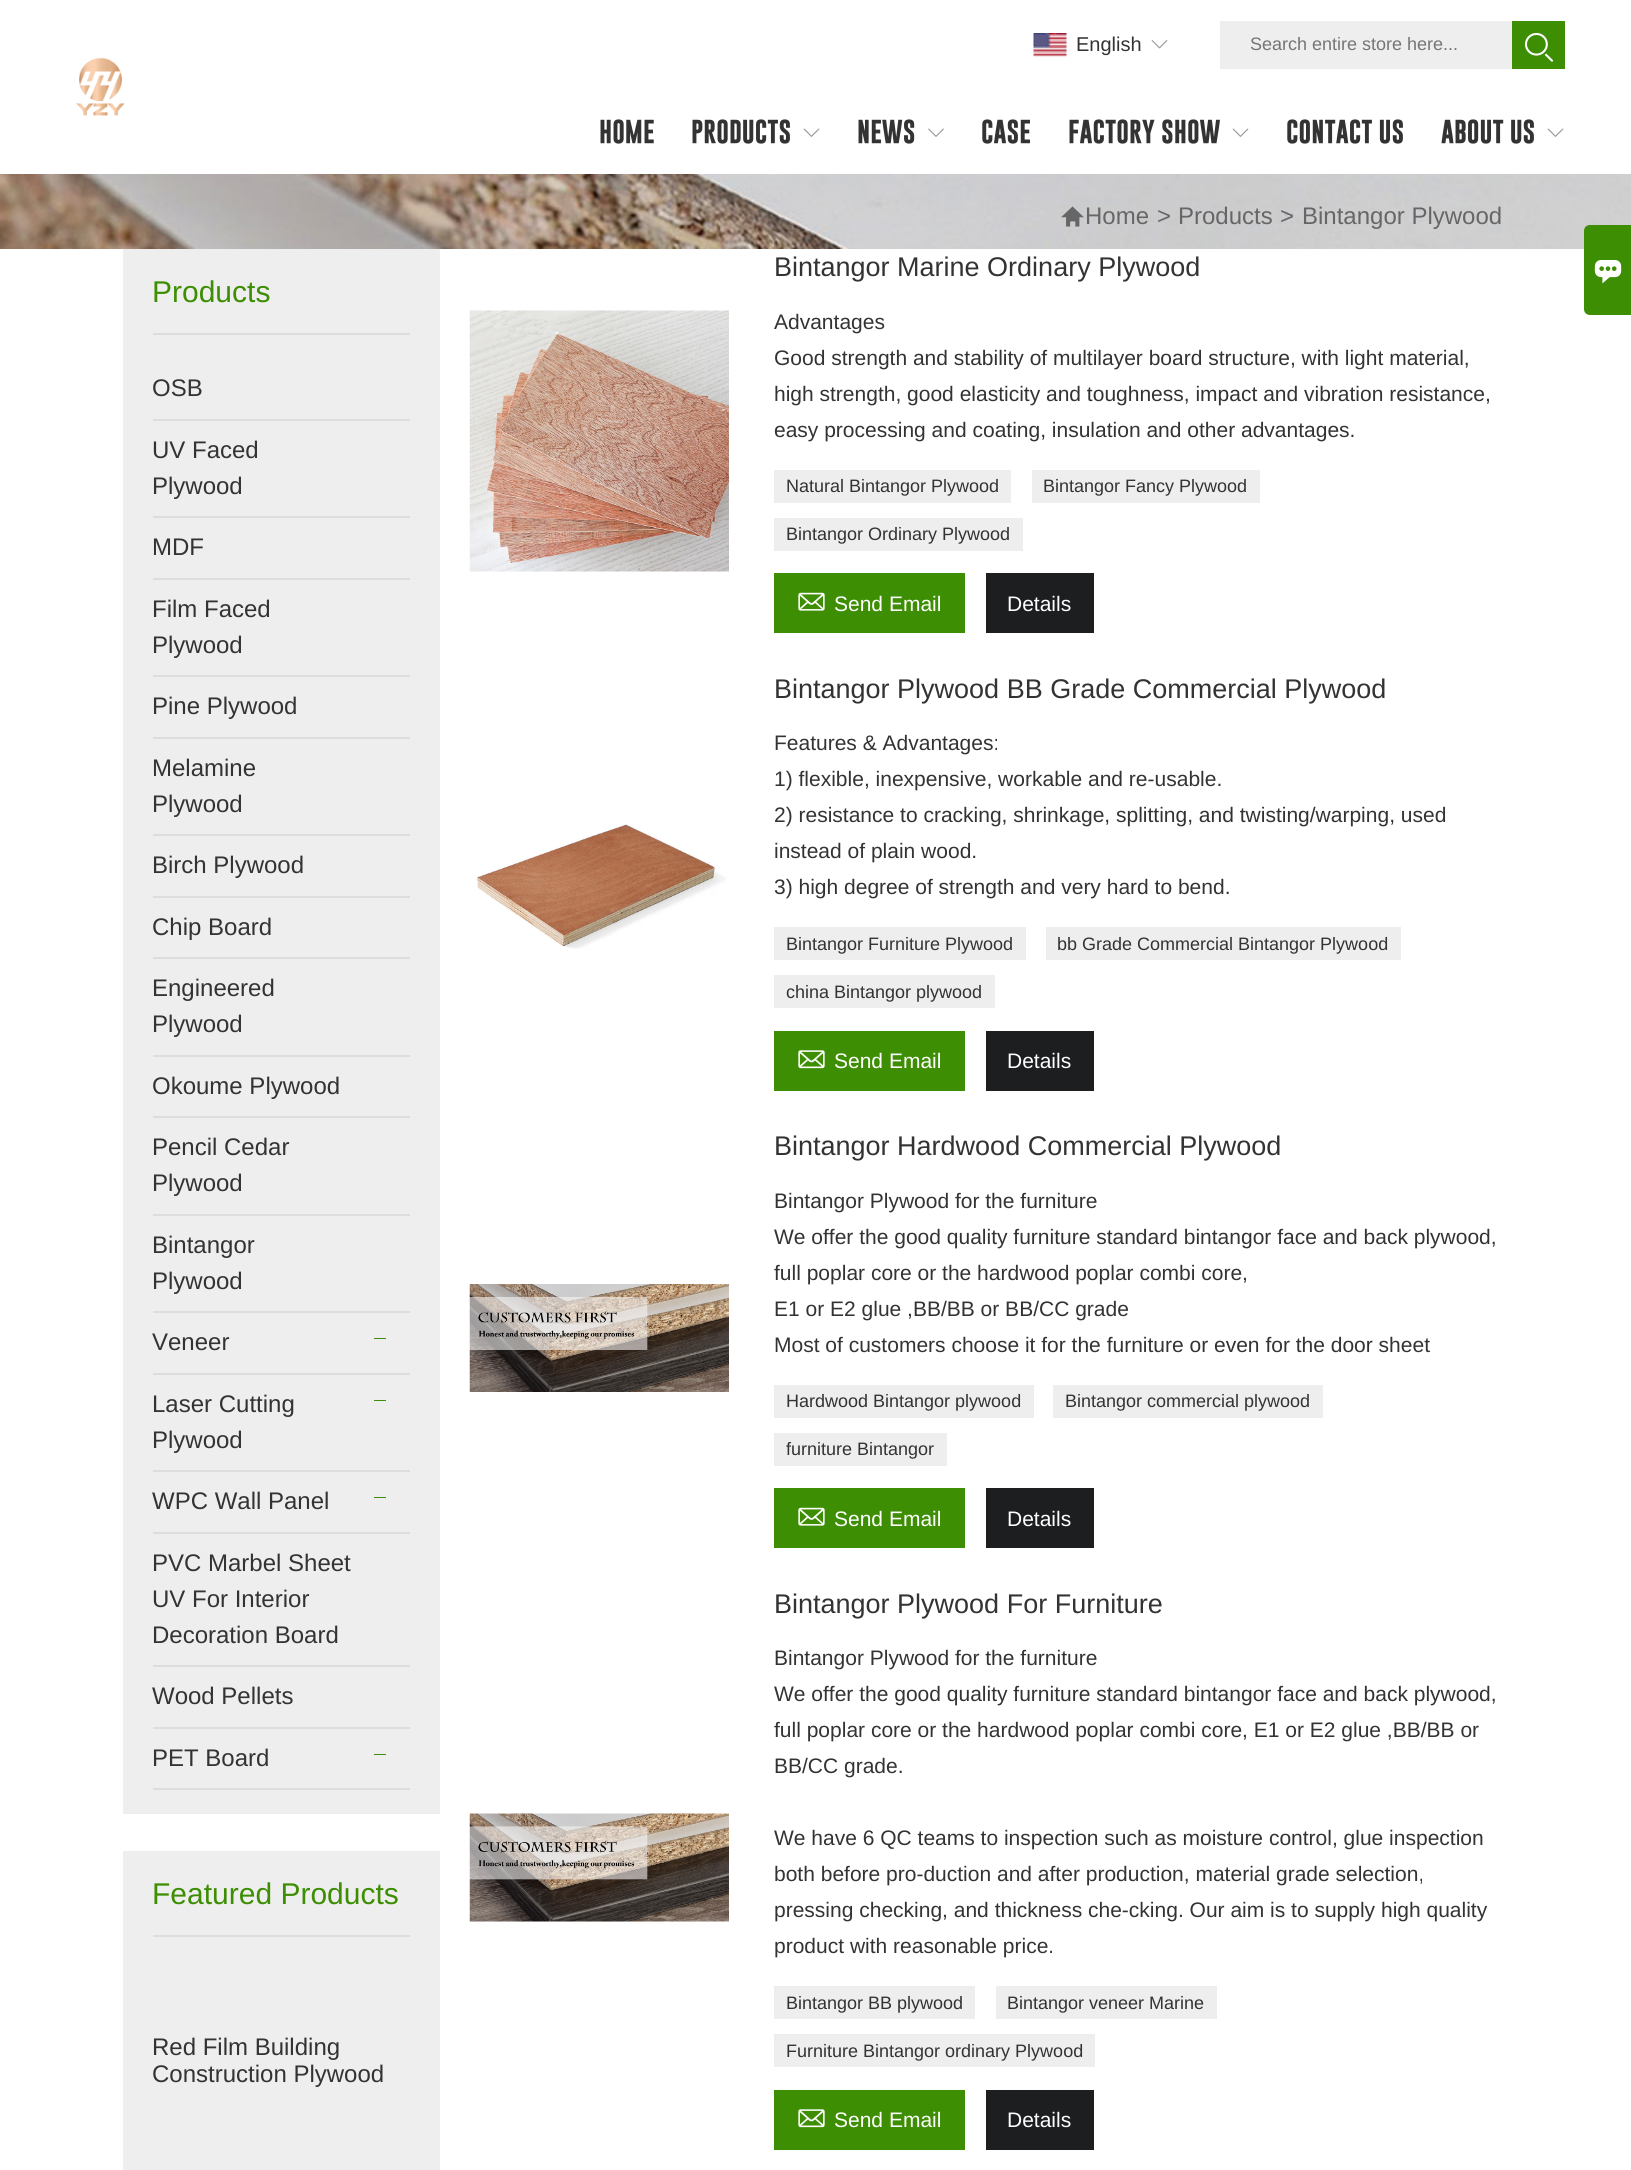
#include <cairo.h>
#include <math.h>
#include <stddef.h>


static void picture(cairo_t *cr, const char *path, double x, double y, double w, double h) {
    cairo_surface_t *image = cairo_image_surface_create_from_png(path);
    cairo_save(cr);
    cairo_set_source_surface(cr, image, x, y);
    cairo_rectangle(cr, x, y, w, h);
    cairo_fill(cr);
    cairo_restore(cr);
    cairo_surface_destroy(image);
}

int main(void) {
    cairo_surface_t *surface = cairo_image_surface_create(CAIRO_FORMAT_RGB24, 1631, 2170);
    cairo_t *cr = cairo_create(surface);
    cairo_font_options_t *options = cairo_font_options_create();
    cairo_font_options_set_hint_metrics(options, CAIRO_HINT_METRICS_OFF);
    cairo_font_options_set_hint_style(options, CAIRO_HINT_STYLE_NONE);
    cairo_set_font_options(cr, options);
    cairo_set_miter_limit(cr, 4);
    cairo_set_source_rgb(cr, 1, 1, 1);
    cairo_paint(cr);
    picture(cr, "img1.png", 1033, 33, 34, 24);
    cairo_select_font_face(cr, "Liberation Sans", CAIRO_FONT_SLANT_NORMAL, CAIRO_FONT_WEIGHT_NORMAL);
    cairo_set_font_size(cr, 20);
    cairo_set_source_rgb(cr, 0.2, 0.2, 0.2);
    cairo_move_to(cr, 1076, 51);
    cairo_show_text(cr, "English");
    picture(cr, "img2.png", 1151, 40, 17, 9);
    cairo_set_source_rgb(cr, 0.933, 0.933, 0.933);
    cairo_rectangle(cr, 1220, 21, 292, 48);
    cairo_fill(cr);
    cairo_set_font_size(cr, 18);
    cairo_set_source_rgb(cr, 0.459, 0.459, 0.459);
    cairo_move_to(cr, 1250, 50);
    cairo_show_text(cr, "Search entire store here...");
    cairo_set_source_rgb(cr, 0.239, 0.557, 0.012);
    cairo_rectangle(cr, 1512, 21, 53, 48);
    cairo_fill(cr);
    picture(cr, "img3.png", 1524, 32, 29, 30);
    picture(cr, "img4.png", 76, 57, 49, 59);
    cairo_select_font_face(cr, "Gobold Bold", CAIRO_FONT_SLANT_NORMAL, CAIRO_FONT_WEIGHT_BOLD);
    cairo_set_font_size(cr, 24);
    cairo_set_source_rgb(cr, 0.2, 0.2, 0.2);
    cairo_move_to(cr, 599, 143);
    cairo_show_text(cr, "HOME");
    cairo_move_to(cr, 691, 143);
    cairo_show_text(cr, "PRODUCTS");
    picture(cr, "img5.png", 803, 128, 17, 9);
    cairo_move_to(cr, 857, 143);
    cairo_show_text(cr, "NEWS");
    picture(cr, "img6.png", 928, 128, 16, 9);
    cairo_move_to(cr, 981, 143);
    cairo_show_text(cr, "CASE");
    cairo_move_to(cr, 1068, 143);
    cairo_show_text(cr, "FACTORY SHOW");
    picture(cr, "img5.png", 1232, 128, 17, 9);
    cairo_move_to(cr, 1286, 143);
    cairo_show_text(cr, "CONTACT US");
    cairo_move_to(cr, 1441, 143);
    cairo_show_text(cr, "ABOUT US");
    picture(cr, "img5.png", 1547, 128, 17, 9);
    picture(cr, "img7.png", 0, 174, 1631, 75);
    picture(cr, "img8.png", 1061, 206, 23, 21);
    cairo_select_font_face(cr, "Liberation Sans", CAIRO_FONT_SLANT_NORMAL, CAIRO_FONT_WEIGHT_NORMAL);
    cairo_set_source_rgb(cr, 0.4, 0.4, 0.4);
    cairo_move_to(cr, 1085, 224);
    cairo_show_text(cr, "Home");
    cairo_move_to(cr, 1157, 224);
    cairo_show_text(cr, ">");
    cairo_move_to(cr, 1178, 224);
    cairo_show_text(cr, "Products");
    cairo_move_to(cr, 1280, 224);
    cairo_show_text(cr, ">");
    cairo_move_to(cr, 1302, 224);
    cairo_show_text(cr, "Bintangor Plywood");
    cairo_set_source_rgb(cr, 0.933, 0.933, 0.933);
    cairo_rectangle(cr, 123, 249, 317, 1565);
    cairo_fill(cr);
    cairo_set_source_rgb(cr, 0.867, 0.867, 0.867);
    cairo_rectangle(cr, 153, 333, 257, 2);
    cairo_fill(cr);
    cairo_set_font_size(cr, 30);
    cairo_set_source_rgb(cr, 0.239, 0.557, 0.012);
    cairo_move_to(cr, 152, 302);
    cairo_show_text(cr, "Products");
    cairo_set_source_rgb(cr, 0.867, 0.867, 0.867);
    cairo_rectangle(cr, 153, 419, 257, 2);
    cairo_fill(cr);
    cairo_set_font_size(cr, 24);
    cairo_set_source_rgb(cr, 0.2, 0.2, 0.2);
    cairo_move_to(cr, 152, 396);
    cairo_show_text(cr, "OSB");
    cairo_set_source_rgb(cr, 0.867, 0.867, 0.867);
    cairo_rectangle(cr, 153, 516, 257, 2);
    cairo_fill(cr);
    cairo_set_source_rgb(cr, 0.2, 0.2, 0.2);
    cairo_move_to(cr, 152, 458);
    cairo_show_text(cr, "UV Faced");
    cairo_move_to(cr, 152, 494);
    cairo_show_text(cr, "Plywood");
    cairo_set_source_rgb(cr, 0.867, 0.867, 0.867);
    cairo_rectangle(cr, 153, 578, 257, 2);
    cairo_fill(cr);
    cairo_set_source_rgb(cr, 0.2, 0.2, 0.2);
    cairo_move_to(cr, 152, 555);
    cairo_show_text(cr, "MDF");
    cairo_set_source_rgb(cr, 0.867, 0.867, 0.867);
    cairo_rectangle(cr, 153, 675, 257, 2);
    cairo_fill(cr);
    cairo_set_source_rgb(cr, 0.2, 0.2, 0.2);
    cairo_move_to(cr, 152, 617);
    cairo_show_text(cr, "Film Faced");
    cairo_move_to(cr, 152, 653);
    cairo_show_text(cr, "Plywood");
    cairo_set_source_rgb(cr, 0.867, 0.867, 0.867);
    cairo_rectangle(cr, 153, 737, 257, 2);
    cairo_fill(cr);
    cairo_set_source_rgb(cr, 0.2, 0.2, 0.2);
    cairo_move_to(cr, 152, 714);
    cairo_show_text(cr, "Pine Plywood");
    cairo_set_source_rgb(cr, 0.867, 0.867, 0.867);
    cairo_rectangle(cr, 153, 834, 257, 2);
    cairo_fill(cr);
    cairo_set_source_rgb(cr, 0.2, 0.2, 0.2);
    cairo_move_to(cr, 152, 776);
    cairo_show_text(cr, "Melamine");
    cairo_move_to(cr, 152, 812);
    cairo_show_text(cr, "Plywood");
    cairo_set_source_rgb(cr, 0.867, 0.867, 0.867);
    cairo_rectangle(cr, 153, 896, 257, 2);
    cairo_fill(cr);
    cairo_set_source_rgb(cr, 0.2, 0.2, 0.2);
    cairo_move_to(cr, 152, 873);
    cairo_show_text(cr, "Birch Plywood");
    cairo_set_source_rgb(cr, 0.867, 0.867, 0.867);
    cairo_rectangle(cr, 153, 957, 257, 2);
    cairo_fill(cr);
    cairo_set_source_rgb(cr, 0.2, 0.2, 0.2);
    cairo_move_to(cr, 152, 935);
    cairo_show_text(cr, "Chip Board");
    cairo_set_source_rgb(cr, 0.867, 0.867, 0.867);
    cairo_rectangle(cr, 153, 1055, 257, 2);
    cairo_fill(cr);
    cairo_set_source_rgb(cr, 0.2, 0.2, 0.2);
    cairo_move_to(cr, 152, 996);
    cairo_show_text(cr, "Engineered");
    cairo_move_to(cr, 152, 1032);
    cairo_show_text(cr, "Plywood");
    cairo_set_source_rgb(cr, 0.867, 0.867, 0.867);
    cairo_rectangle(cr, 153, 1116, 257, 2);
    cairo_fill(cr);
    cairo_set_source_rgb(cr, 0.2, 0.2, 0.2);
    cairo_move_to(cr, 152, 1094);
    cairo_show_text(cr, "Okoume Plywood");
    cairo_set_source_rgb(cr, 0.867, 0.867, 0.867);
    cairo_rectangle(cr, 153, 1214, 257, 2);
    cairo_fill(cr);
    cairo_set_source_rgb(cr, 0.2, 0.2, 0.2);
    cairo_move_to(cr, 152, 1155);
    cairo_show_text(cr, "Pencil Cedar");
    cairo_move_to(cr, 152, 1191);
    cairo_show_text(cr, "Plywood");
    cairo_set_source_rgb(cr, 0.867, 0.867, 0.867);
    cairo_rectangle(cr, 153, 1311, 257, 2);
    cairo_fill(cr);
    cairo_set_source_rgb(cr, 0.2, 0.2, 0.2);
    cairo_move_to(cr, 152, 1253);
    cairo_show_text(cr, "Bintangor");
    cairo_move_to(cr, 152, 1289);
    cairo_show_text(cr, "Plywood");
    cairo_set_source_rgb(cr, 0.867, 0.867, 0.867);
    cairo_rectangle(cr, 153, 1373, 257, 2);
    cairo_fill(cr);
    cairo_set_source_rgb(cr, 0.2, 0.2, 0.2);
    cairo_move_to(cr, 152, 1350);
    cairo_show_text(cr, "Veneer");
    cairo_set_source_rgb(cr, 0.239, 0.557, 0.012);
    cairo_rectangle(cr, 374, 1338, 12, 1);
    cairo_fill(cr);
    cairo_set_source_rgb(cr, 0.867, 0.867, 0.867);
    cairo_rectangle(cr, 153, 1470, 257, 2);
    cairo_fill(cr);
    cairo_set_source_rgb(cr, 0.2, 0.2, 0.2);
    cairo_move_to(cr, 152, 1412);
    cairo_show_text(cr, "Laser Cutting");
    cairo_move_to(cr, 152, 1448);
    cairo_show_text(cr, "Plywood");
    cairo_set_source_rgb(cr, 0.239, 0.557, 0.012);
    cairo_rectangle(cr, 374, 1400, 12, 1);
    cairo_fill(cr);
    cairo_set_source_rgb(cr, 0.867, 0.867, 0.867);
    cairo_rectangle(cr, 153, 1532, 257, 2);
    cairo_fill(cr);
    cairo_set_source_rgb(cr, 0.2, 0.2, 0.2);
    cairo_move_to(cr, 152, 1509);
    cairo_show_text(cr, "WPC Wall Panel");
    cairo_set_source_rgb(cr, 0.239, 0.557, 0.012);
    cairo_rectangle(cr, 374, 1497, 12, 1);
    cairo_fill(cr);
    cairo_set_source_rgb(cr, 0.867, 0.867, 0.867);
    cairo_rectangle(cr, 153, 1665, 257, 2);
    cairo_fill(cr);
    cairo_set_source_rgb(cr, 0.2, 0.2, 0.2);
    cairo_move_to(cr, 152, 1571);
    cairo_show_text(cr, "PVC Marbel Sheet");
    cairo_move_to(cr, 152, 1607);
    cairo_show_text(cr, "UV For Interior");
    cairo_move_to(cr, 152, 1643);
    cairo_show_text(cr, "Decoration Board");
    cairo_set_source_rgb(cr, 0.867, 0.867, 0.867);
    cairo_rectangle(cr, 153, 1727, 257, 2);
    cairo_fill(cr);
    cairo_set_source_rgb(cr, 0.2, 0.2, 0.2);
    cairo_move_to(cr, 152, 1704);
    cairo_show_text(cr, "Wood Pellets");
    cairo_set_source_rgb(cr, 0.867, 0.867, 0.867);
    cairo_rectangle(cr, 153, 1788, 257, 2);
    cairo_fill(cr);
    cairo_set_source_rgb(cr, 0.2, 0.2, 0.2);
    cairo_move_to(cr, 152, 1766);
    cairo_show_text(cr, "PET Board");
    cairo_set_source_rgb(cr, 0.239, 0.557, 0.012);
    cairo_rectangle(cr, 374, 1754, 12, 1);
    cairo_fill(cr);
    cairo_set_source_rgb(cr, 0.933, 0.933, 0.933);
    cairo_rectangle(cr, 123, 1851, 317, 319);
    cairo_fill(cr);
    cairo_set_source_rgb(cr, 0.867, 0.867, 0.867);
    cairo_rectangle(cr, 153, 1935, 257, 2);
    cairo_fill(cr);
    cairo_set_font_size(cr, 30);
    cairo_set_source_rgb(cr, 0.239, 0.557, 0.012);
    cairo_move_to(cr, 152, 1904);
    cairo_show_text(cr, "Featured Products");
    cairo_set_font_size(cr, 24);
    cairo_set_source_rgb(cr, 0.2, 0.2, 0.2);
    cairo_move_to(cr, 152, 2055);
    cairo_show_text(cr, "Red Film Building");
    cairo_move_to(cr, 152, 2082);
    cairo_show_text(cr, "Construction Plywood");
    picture(cr, "img9.png", 469, 310, 260, 262);
    cairo_set_font_size(cr, 27);
    cairo_move_to(cr, 774, 276);
    cairo_show_text(cr, "Bintangor Marine Ordinary Plywood");
    cairo_set_font_size(cr, 21);
    cairo_move_to(cr, 774, 329);
    cairo_show_text(cr, "Advantages");
    cairo_move_to(cr, 774, 365);
    cairo_show_text(cr, "Good strength and stability of multilayer board structure, with light material,");
    cairo_move_to(cr, 774, 401);
    cairo_show_text(cr, "high strength, good elasticity and toughness, impact and vibration resistance,");
    cairo_move_to(cr, 774, 437);
    cairo_show_text(cr, "easy processing and coating, insulation and other advantages.");
    cairo_set_source_rgb(cr, 0.933, 0.933, 0.933);
    cairo_rectangle(cr, 774, 470, 237, 33);
    cairo_fill(cr);
    cairo_set_font_size(cr, 18);
    cairo_set_source_rgb(cr, 0.2, 0.2, 0.2);
    cairo_move_to(cr, 786, 492);
    cairo_show_text(cr, "Natural Bintangor Plywood");
    cairo_set_source_rgb(cr, 0.933, 0.933, 0.933);
    cairo_rectangle(cr, 1032, 470, 228, 33);
    cairo_fill(cr);
    cairo_set_source_rgb(cr, 0.2, 0.2, 0.2);
    cairo_move_to(cr, 1043, 492);
    cairo_show_text(cr, "Bintangor Fancy Plywood");
    cairo_set_source_rgb(cr, 0.933, 0.933, 0.933);
    cairo_rectangle(cr, 774, 518, 249, 33);
    cairo_fill(cr);
    cairo_set_source_rgb(cr, 0.2, 0.2, 0.2);
    cairo_move_to(cr, 786, 540);
    cairo_show_text(cr, "Bintangor Ordinary Plywood");
    cairo_set_source_rgb(cr, 0.239, 0.557, 0.012);
    cairo_rectangle(cr, 774, 573, 191, 60);
    cairo_fill(cr);
    picture(cr, "img10.png", 798, 592, 27, 19);
    cairo_set_font_size(cr, 21);
    cairo_set_source_rgb(cr, 1, 1, 1);
    cairo_move_to(cr, 834, 611);
    cairo_show_text(cr, "Send Email");
    cairo_set_source_rgb(cr, 0.114, 0.118, 0.125);
    cairo_rectangle(cr, 986, 573, 108, 60);
    cairo_fill(cr);
    cairo_set_source_rgb(cr, 1, 1, 1);
    cairo_move_to(cr, 1007, 611);
    cairo_show_text(cr, "Details");
    picture(cr, "img11.png", 477, 824, 250, 125);
    cairo_set_font_size(cr, 27);
    cairo_set_source_rgb(cr, 0.2, 0.2, 0.2);
    cairo_move_to(cr, 774, 698);
    cairo_show_text(cr, "Bintangor Plywood BB Grade Commercial Plywood");
    cairo_set_font_size(cr, 21);
    cairo_move_to(cr, 774, 750);
    cairo_show_text(cr, "Features & Advantages:");
    cairo_move_to(cr, 774, 786);
    cairo_show_text(cr, "1) flexible, inexpensive, workable and re-usable.");
    cairo_move_to(cr, 774, 822);
    cairo_show_text(cr, "2) resistance to cracking, shrinkage, splitting, and twisting/warping, used");
    cairo_move_to(cr, 774, 858);
    cairo_show_text(cr, "instead of plain wood.");
    cairo_move_to(cr, 774, 894);
    cairo_show_text(cr, "3) high degree of strength and very hard to bend.");
    cairo_set_source_rgb(cr, 0.933, 0.933, 0.933);
    cairo_rectangle(cr, 774, 927, 252, 33);
    cairo_fill(cr);
    cairo_set_font_size(cr, 18);
    cairo_set_source_rgb(cr, 0.2, 0.2, 0.2);
    cairo_move_to(cr, 786, 950);
    cairo_show_text(cr, "Bintangor Furniture Plywood");
    cairo_set_source_rgb(cr, 0.933, 0.933, 0.933);
    cairo_rectangle(cr, 1046, 927, 355, 33);
    cairo_fill(cr);
    cairo_set_source_rgb(cr, 0.2, 0.2, 0.2);
    cairo_move_to(cr, 1057, 950);
    cairo_show_text(cr, "bb Grade Commercial Bintangor Plywood");
    cairo_set_source_rgb(cr, 0.933, 0.933, 0.933);
    cairo_rectangle(cr, 774, 975, 221, 33);
    cairo_fill(cr);
    cairo_set_source_rgb(cr, 0.2, 0.2, 0.2);
    cairo_move_to(cr, 786, 998);
    cairo_show_text(cr, "china Bintangor plywood");
    cairo_set_source_rgb(cr, 0.239, 0.557, 0.012);
    cairo_rectangle(cr, 774, 1031, 191, 60);
    cairo_fill(cr);
    picture(cr, "img12.png", 798, 1050, 27, 19);
    cairo_set_font_size(cr, 21);
    cairo_set_source_rgb(cr, 1, 1, 1);
    cairo_move_to(cr, 834, 1068);
    cairo_show_text(cr, "Send Email");
    cairo_set_source_rgb(cr, 0.114, 0.118, 0.125);
    cairo_rectangle(cr, 986, 1031, 108, 60);
    cairo_fill(cr);
    cairo_set_source_rgb(cr, 1, 1, 1);
    cairo_move_to(cr, 1007, 1068);
    cairo_show_text(cr, "Details");
    picture(cr, "img13.png", 469, 1284, 260, 108);
    cairo_set_font_size(cr, 27);
    cairo_set_source_rgb(cr, 0.2, 0.2, 0.2);
    cairo_move_to(cr, 774, 1155);
    cairo_show_text(cr, "Bintangor Hardwood Commercial Plywood");
    cairo_set_font_size(cr, 21);
    cairo_move_to(cr, 774, 1208);
    cairo_show_text(cr, "Bintangor Plywood for the furniture");
    cairo_move_to(cr, 774, 1244);
    cairo_show_text(cr, "We offer the good quality furniture standard bintangor face and back plywood,");
    cairo_move_to(cr, 774, 1280);
    cairo_show_text(cr, "full poplar core or the hardwood poplar combi core,");
    cairo_move_to(cr, 774, 1316);
    cairo_show_text(cr, "E1 or E2 glue ,BB/BB or BB/CC grade");
    cairo_move_to(cr, 774, 1352);
    cairo_show_text(cr, "Most of customers choose it for the furniture or even for the door sheet");
    cairo_set_source_rgb(cr, 0.933, 0.933, 0.933);
    cairo_rectangle(cr, 774, 1385, 260, 33);
    cairo_fill(cr);
    cairo_set_font_size(cr, 18);
    cairo_set_source_rgb(cr, 0.2, 0.2, 0.2);
    cairo_move_to(cr, 786, 1407);
    cairo_show_text(cr, "Hardwood Bintangor plywood");
    cairo_set_source_rgb(cr, 0.933, 0.933, 0.933);
    cairo_rectangle(cr, 1053, 1385, 270, 33);
    cairo_fill(cr);
    cairo_set_source_rgb(cr, 0.2, 0.2, 0.2);
    cairo_move_to(cr, 1065, 1407);
    cairo_show_text(cr, "Bintangor commercial plywood");
    cairo_set_source_rgb(cr, 0.933, 0.933, 0.933);
    cairo_rectangle(cr, 774, 1433, 173, 33);
    cairo_fill(cr);
    cairo_set_source_rgb(cr, 0.2, 0.2, 0.2);
    cairo_move_to(cr, 786, 1455);
    cairo_show_text(cr, "furniture Bintangor");
    cairo_set_source_rgb(cr, 0.239, 0.557, 0.012);
    cairo_rectangle(cr, 774, 1488, 191, 60);
    cairo_fill(cr);
    picture(cr, "img10.png", 798, 1507, 27, 19);
    cairo_set_font_size(cr, 21);
    cairo_set_source_rgb(cr, 1, 1, 1);
    cairo_move_to(cr, 834, 1526);
    cairo_show_text(cr, "Send Email");
    cairo_set_source_rgb(cr, 0.114, 0.118, 0.125);
    cairo_rectangle(cr, 986, 1488, 108, 60);
    cairo_fill(cr);
    cairo_set_source_rgb(cr, 1, 1, 1);
    cairo_move_to(cr, 1007, 1526);
    cairo_show_text(cr, "Details");
    picture(cr, "img14.png", 469, 1813, 260, 109);
    cairo_set_font_size(cr, 27);
    cairo_set_source_rgb(cr, 0.2, 0.2, 0.2);
    cairo_move_to(cr, 774, 1613);
    cairo_show_text(cr, "Bintangor Plywood For Furniture");
    cairo_set_font_size(cr, 21);
    cairo_move_to(cr, 774, 1665);
    cairo_show_text(cr, "Bintangor Plywood for the furniture");
    cairo_move_to(cr, 774, 1701);
    cairo_show_text(cr, "We offer the good quality furniture standard bintangor face and back plywood,");
    cairo_move_to(cr, 774, 1737);
    cairo_show_text(cr, "full poplar core or the hardwood poplar combi core, E1 or E2 glue ,BB/BB or");
    cairo_move_to(cr, 774, 1773);
    cairo_show_text(cr, "BB/CC grade.");
    cairo_move_to(cr, 774, 1845);
    cairo_show_text(cr, "We have 6 QC teams to inspection such as moisture control, glue inspection");
    cairo_move_to(cr, 774, 1881);
    cairo_show_text(cr, "both before pro-duction and after production, material grade selection,");
    cairo_move_to(cr, 774, 1917);
    cairo_show_text(cr, "pressing checking, and thickness che-cking. Our aim is to supply high quality");
    cairo_move_to(cr, 774, 1953);
    cairo_show_text(cr, "product with reasonable price.");
    cairo_set_source_rgb(cr, 0.933, 0.933, 0.933);
    cairo_rectangle(cr, 774, 1986, 201, 33);
    cairo_fill(cr);
    cairo_set_font_size(cr, 18);
    cairo_set_source_rgb(cr, 0.2, 0.2, 0.2);
    cairo_move_to(cr, 786, 2009);
    cairo_show_text(cr, "Bintangor BB plywood");
    cairo_set_source_rgb(cr, 0.933, 0.933, 0.933);
    cairo_rectangle(cr, 996, 1986, 221, 33);
    cairo_fill(cr);
    cairo_set_source_rgb(cr, 0.2, 0.2, 0.2);
    cairo_move_to(cr, 1007, 2009);
    cairo_show_text(cr, "Bintangor veneer Marine");
    cairo_set_source_rgb(cr, 0.933, 0.933, 0.933);
    cairo_rectangle(cr, 774, 2034, 321, 33);
    cairo_fill(cr);
    cairo_set_source_rgb(cr, 0.2, 0.2, 0.2);
    cairo_move_to(cr, 786, 2057);
    cairo_show_text(cr, "Furniture Bintangor ordinary Plywood");
    cairo_set_source_rgb(cr, 0.239, 0.557, 0.012);
    cairo_rectangle(cr, 774, 2090, 191, 60);
    cairo_fill(cr);
    picture(cr, "img12.png", 798, 2109, 27, 19);
    cairo_set_font_size(cr, 21);
    cairo_set_source_rgb(cr, 1, 1, 1);
    cairo_move_to(cr, 834, 2127);
    cairo_show_text(cr, "Send Email");
    cairo_set_source_rgb(cr, 0.114, 0.118, 0.125);
    cairo_rectangle(cr, 986, 2090, 108, 60);
    cairo_fill(cr);
    cairo_set_source_rgb(cr, 1, 1, 1);
    cairo_move_to(cr, 1007, 2127);
    cairo_show_text(cr, "Details");
    cairo_set_source_rgb(cr, 0.239, 0.557, 0.012);
    cairo_new_path(cr);
    cairo_move_to(cr, 1590, 225);
    cairo_line_to(cr, 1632, 225);
    cairo_line_to(cr, 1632, 315);
    cairo_line_to(cr, 1590, 315);
    cairo_curve_to(cr, 1586.5, 315, 1584, 312.5, 1584, 309);
    cairo_line_to(cr, 1584, 231);
    cairo_curve_to(cr, 1584, 227.5, 1586.5, 225, 1590, 225);
    cairo_close_path(cr);
    cairo_fill(cr);
    picture(cr, "img15.png", 1594, 260, 28, 24);
    cairo_surface_write_to_png(surface, "page.png");
    cairo_font_options_destroy(options);
    cairo_destroy(cr);
    cairo_surface_destroy(surface);
    return 0;
}
